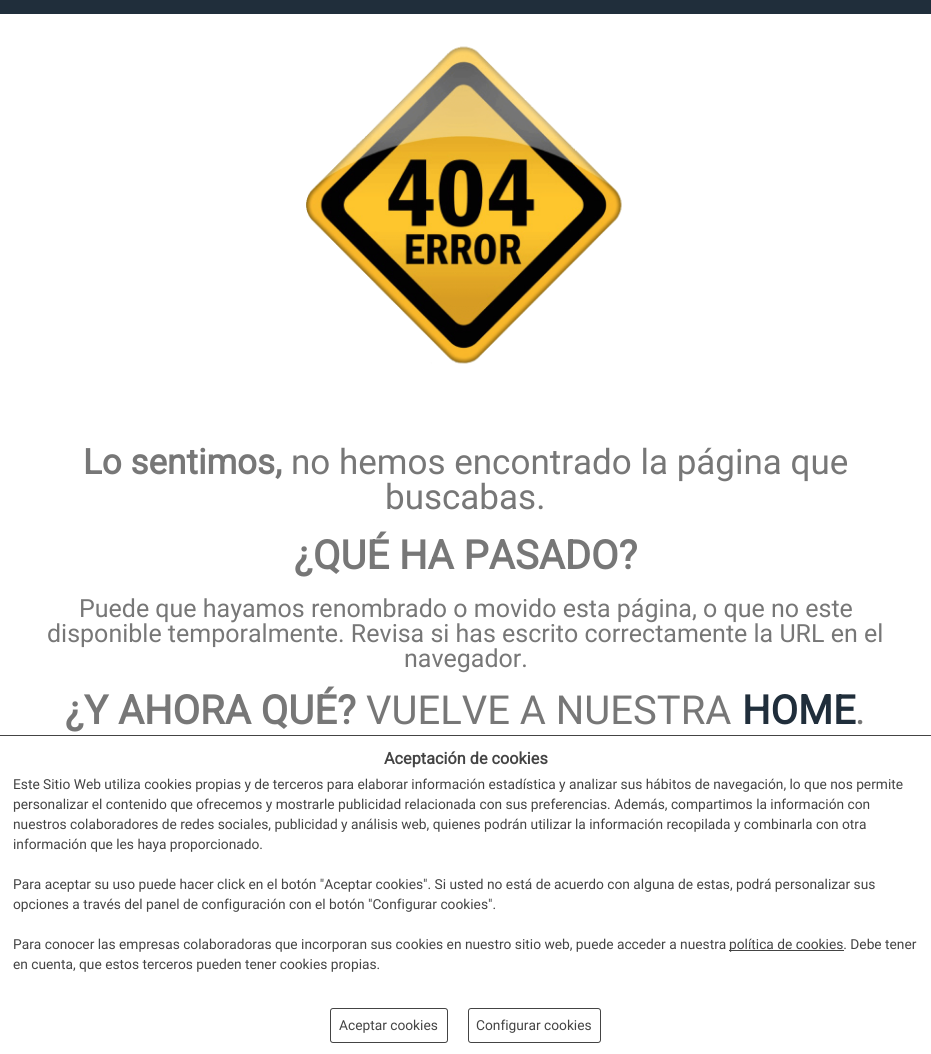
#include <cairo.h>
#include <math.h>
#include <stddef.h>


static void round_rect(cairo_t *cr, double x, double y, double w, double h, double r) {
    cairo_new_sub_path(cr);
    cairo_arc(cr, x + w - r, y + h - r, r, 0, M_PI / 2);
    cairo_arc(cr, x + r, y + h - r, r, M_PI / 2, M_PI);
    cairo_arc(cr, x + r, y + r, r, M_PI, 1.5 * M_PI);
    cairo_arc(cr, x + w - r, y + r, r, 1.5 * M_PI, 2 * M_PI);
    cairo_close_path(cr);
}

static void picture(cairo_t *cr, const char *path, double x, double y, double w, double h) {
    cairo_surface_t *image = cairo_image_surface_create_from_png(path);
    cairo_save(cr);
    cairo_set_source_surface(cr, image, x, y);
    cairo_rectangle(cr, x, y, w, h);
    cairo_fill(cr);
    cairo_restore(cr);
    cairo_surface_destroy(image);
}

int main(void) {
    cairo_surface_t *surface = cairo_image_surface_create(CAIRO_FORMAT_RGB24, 931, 1054);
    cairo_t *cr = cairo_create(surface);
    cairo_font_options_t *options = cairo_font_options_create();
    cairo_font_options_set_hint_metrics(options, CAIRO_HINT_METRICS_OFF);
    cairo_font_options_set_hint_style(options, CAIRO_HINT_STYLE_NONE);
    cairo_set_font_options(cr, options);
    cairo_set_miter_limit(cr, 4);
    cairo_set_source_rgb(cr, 1, 1, 1);
    cairo_paint(cr);
    cairo_set_source_rgb(cr, 0.125, 0.18, 0.231);
    cairo_rectangle(cr, 0, 0, 931, 14);
    cairo_fill(cr);
    picture(cr, "img1.png", 306, 46, 316, 318);
    cairo_select_font_face(cr, "Roboto", CAIRO_FONT_SLANT_NORMAL, CAIRO_FONT_WEIGHT_BOLD);
    cairo_set_font_size(cr, 35);
    cairo_set_source_rgb(cr, 0.467, 0.467, 0.467);
    cairo_move_to(cr, 83, 474);
    cairo_show_text(cr, "Lo sentimos,");
    cairo_select_font_face(cr, "Roboto", CAIRO_FONT_SLANT_NORMAL, CAIRO_FONT_WEIGHT_NORMAL);
    cairo_move_to(cr, 291, 474);
    cairo_show_text(cr, "no hemos encontrado la página que");
    cairo_move_to(cr, 385, 509);
    cairo_show_text(cr, "buscabas.");
    cairo_select_font_face(cr, "Roboto", CAIRO_FONT_SLANT_NORMAL, CAIRO_FONT_WEIGHT_BOLD);
    cairo_set_font_size(cr, 40);
    cairo_move_to(cr, 294, 569);
    cairo_show_text(cr, "¿QUÉ HA PASADO?");
    cairo_select_font_face(cr, "Roboto", CAIRO_FONT_SLANT_NORMAL, CAIRO_FONT_WEIGHT_NORMAL);
    cairo_set_font_size(cr, 25);
    cairo_move_to(cr, 79, 617);
    cairo_show_text(cr, "Puede que hayamos renombrado o movido esta página, o que no este");
    cairo_move_to(cr, 47, 642);
    cairo_show_text(cr, "disponible temporalmente. Revisa si has escrito correctamente la URL en el");
    cairo_move_to(cr, 404, 667);
    cairo_show_text(cr, "navegador.");
    cairo_select_font_face(cr, "Roboto", CAIRO_FONT_SLANT_NORMAL, CAIRO_FONT_WEIGHT_BOLD);
    cairo_set_font_size(cr, 40);
    cairo_move_to(cr, 65, 724);
    cairo_show_text(cr, "¿Y AHORA QUÉ?");
    cairo_select_font_face(cr, "Roboto", CAIRO_FONT_SLANT_NORMAL, CAIRO_FONT_WEIGHT_NORMAL);
    cairo_move_to(cr, 366, 724);
    cairo_show_text(cr, "VUELVE A NUESTRA");
    cairo_select_font_face(cr, "Roboto", CAIRO_FONT_SLANT_NORMAL, CAIRO_FONT_WEIGHT_BOLD);
    cairo_set_source_rgb(cr, 0.125, 0.18, 0.231);
    cairo_move_to(cr, 742, 724);
    cairo_show_text(cr, "HOME");
    cairo_select_font_face(cr, "Roboto", CAIRO_FONT_SLANT_NORMAL, CAIRO_FONT_WEIGHT_NORMAL);
    cairo_set_source_rgb(cr, 0.467, 0.467, 0.467);
    cairo_move_to(cr, 855, 724);
    cairo_show_text(cr, ".");
    cairo_set_source_rgb(cr, 0.267, 0.267, 0.267);
    cairo_rectangle(cr, 0, 735, 931, 1);
    cairo_fill(cr);
    cairo_select_font_face(cr, "Roboto", CAIRO_FONT_SLANT_NORMAL, CAIRO_FONT_WEIGHT_BOLD);
    cairo_set_font_size(cr, 16.25);
    cairo_move_to(cr, 384, 764);
    cairo_show_text(cr, "Aceptación de cookies");
    cairo_select_font_face(cr, "Roboto", CAIRO_FONT_SLANT_NORMAL, CAIRO_FONT_WEIGHT_NORMAL);
    cairo_set_font_size(cr, 13.75);
    cairo_move_to(cr, 13, 789);
    cairo_show_text(cr, "Este Sitio Web utiliza cookies propias y de terceros para elaborar información estadística y analizar sus hábitos de navegación, lo que nos permite");
    cairo_move_to(cr, 13, 809);
    cairo_show_text(cr, "personalizar el contenido que ofrecemos y mostrarle publicidad relacionada con sus preferencias. Además, compartimos la información con");
    cairo_move_to(cr, 13, 829);
    cairo_show_text(cr, "nuestros colaboradores de redes sociales, publicidad y análisis web, quienes podrán utilizar la información recopilada y combinarla con otra");
    cairo_move_to(cr, 13, 849);
    cairo_show_text(cr, "información que les haya proporcionado.");
    cairo_move_to(cr, 13, 889);
    cairo_show_text(cr, "Para aceptar su uso puede hacer click en el botón \"Aceptar cookies\". Si usted no está de acuerdo con alguna de estas, podrá personalizar sus");
    cairo_move_to(cr, 13, 909);
    cairo_show_text(cr, "opciones a través del panel de configuración con el botón \"Configurar cookies\".");
    cairo_move_to(cr, 13, 949);
    cairo_show_text(cr, "Para conocer las empresas colaboradoras que incorporan sus cookies en nuestro sitio web, puede acceder a nuestra");
    cairo_rectangle(cr, 729, 950, 115, 1);
    cairo_fill(cr);
    cairo_move_to(cr, 729, 949);
    cairo_show_text(cr, "política de cookies. Debe tener");
    cairo_move_to(cr, 13, 969);
    cairo_show_text(cr, "en cuenta, que estos terceros pueden tener cookies propias.");
    round_rect(cr, 330.5, 1008.5, 117, 34, 2.5);
    cairo_set_line_width(cr, 1);
    cairo_stroke(cr);
    cairo_move_to(cr, 339, 1030);
    cairo_show_text(cr, "Aceptar cookies");
    round_rect(cr, 468.5, 1008.5, 132, 34, 2.5);
    cairo_stroke(cr);
    cairo_move_to(cr, 476, 1030);
    cairo_show_text(cr, "Configurar cookies");
    cairo_surface_write_to_png(surface, "page.png");
    cairo_font_options_destroy(options);
    cairo_destroy(cr);
    cairo_surface_destroy(surface);
    return 0;
}
